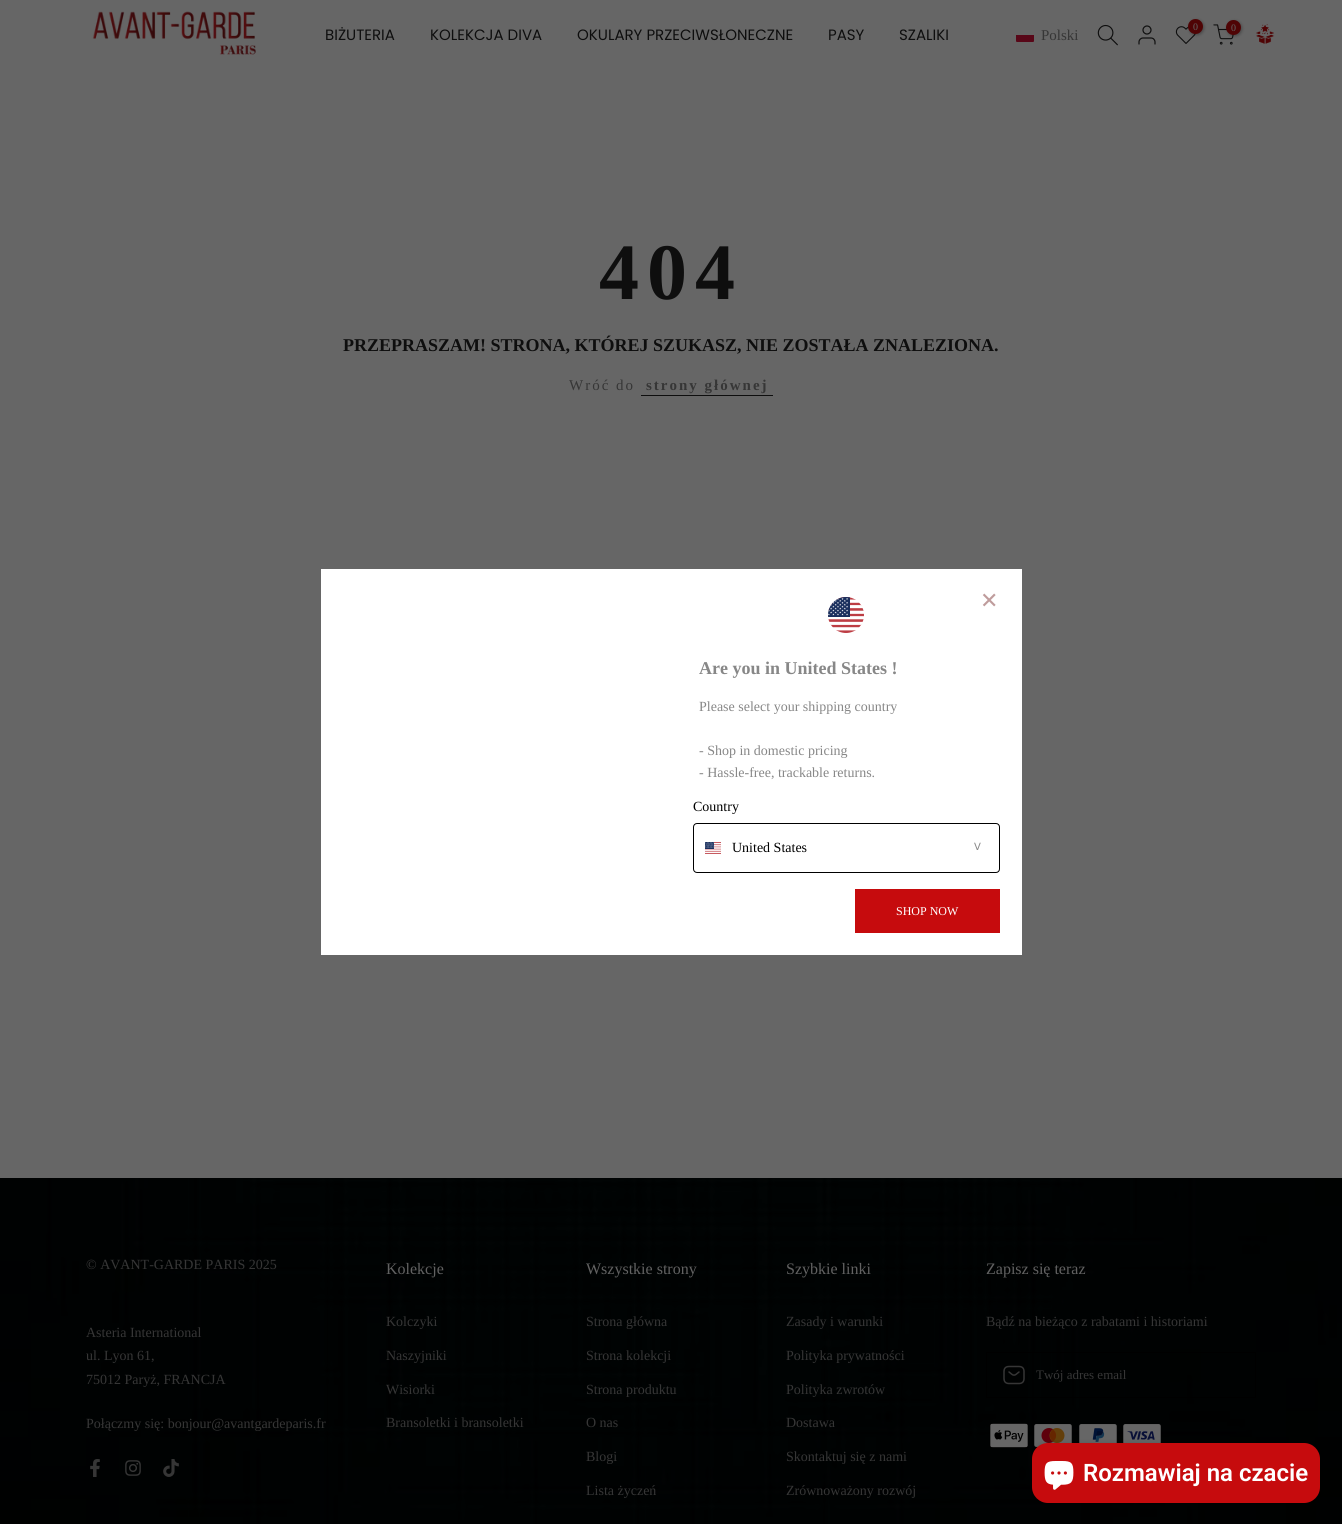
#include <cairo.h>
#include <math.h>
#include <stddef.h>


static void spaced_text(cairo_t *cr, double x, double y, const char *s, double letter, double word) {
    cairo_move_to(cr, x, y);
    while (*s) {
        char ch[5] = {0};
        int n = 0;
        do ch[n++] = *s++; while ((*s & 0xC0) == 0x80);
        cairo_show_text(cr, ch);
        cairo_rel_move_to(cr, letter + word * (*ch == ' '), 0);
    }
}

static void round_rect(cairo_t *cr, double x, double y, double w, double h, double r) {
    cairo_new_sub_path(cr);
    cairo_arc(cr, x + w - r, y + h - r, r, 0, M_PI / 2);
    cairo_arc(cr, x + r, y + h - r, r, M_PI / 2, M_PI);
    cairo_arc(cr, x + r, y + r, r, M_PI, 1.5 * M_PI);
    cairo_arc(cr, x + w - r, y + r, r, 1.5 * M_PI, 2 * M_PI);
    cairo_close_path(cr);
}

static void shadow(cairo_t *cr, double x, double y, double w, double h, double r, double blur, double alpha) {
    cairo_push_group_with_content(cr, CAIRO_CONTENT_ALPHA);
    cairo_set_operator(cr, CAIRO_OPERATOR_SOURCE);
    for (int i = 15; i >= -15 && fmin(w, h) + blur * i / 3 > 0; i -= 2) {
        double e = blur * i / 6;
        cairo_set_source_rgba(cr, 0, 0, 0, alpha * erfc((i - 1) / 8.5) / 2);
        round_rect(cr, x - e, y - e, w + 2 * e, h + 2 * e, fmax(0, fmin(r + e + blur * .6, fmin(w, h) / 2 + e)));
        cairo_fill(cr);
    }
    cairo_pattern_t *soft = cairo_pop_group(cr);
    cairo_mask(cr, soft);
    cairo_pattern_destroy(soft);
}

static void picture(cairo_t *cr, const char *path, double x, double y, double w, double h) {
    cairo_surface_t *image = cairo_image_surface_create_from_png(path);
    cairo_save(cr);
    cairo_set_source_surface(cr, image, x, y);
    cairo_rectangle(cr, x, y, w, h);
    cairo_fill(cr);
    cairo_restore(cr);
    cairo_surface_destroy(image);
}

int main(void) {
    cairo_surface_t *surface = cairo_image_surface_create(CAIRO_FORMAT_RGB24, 1342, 1524);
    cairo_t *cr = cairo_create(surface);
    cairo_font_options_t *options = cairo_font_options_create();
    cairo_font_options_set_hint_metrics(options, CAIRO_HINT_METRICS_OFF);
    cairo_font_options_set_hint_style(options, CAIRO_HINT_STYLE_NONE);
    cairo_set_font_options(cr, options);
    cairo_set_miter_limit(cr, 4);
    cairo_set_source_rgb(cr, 0.4, 0.4, 0.4);
    cairo_paint(cr);
    picture(cr, "img1.png", 92, 11, 164, 44);
    cairo_select_font_face(cr, "Poppins", CAIRO_FONT_SLANT_NORMAL, CAIRO_FONT_WEIGHT_NORMAL);
    cairo_set_font_size(cr, 15);
    cairo_set_source_rgb(cr, 0.055, 0.055, 0.055);
    cairo_move_to(cr, 325, 40);
    cairo_show_text(cr, "BIŻUTERIA");
    cairo_move_to(cr, 430, 40);
    cairo_show_text(cr, "KOLEKCJA DIVA");
    cairo_move_to(cr, 577, 40);
    cairo_show_text(cr, "OKULARY PRZECIWSŁONECZNE");
    cairo_move_to(cr, 828, 40);
    cairo_show_text(cr, "PASY");
    cairo_move_to(cr, 899, 40);
    cairo_show_text(cr, "SZALIKI");
    cairo_set_source_rgb(cr, 0.345, 0.031, 0.094);
    cairo_new_path(cr);
    cairo_move_to(cr, 1016, 35);
    cairo_line_to(cr, 1034, 35);
    cairo_line_to(cr, 1034, 41);
    cairo_curve_to(cr, 1034, 41.5, 1033.5, 42, 1033, 42);
    cairo_line_to(cr, 1017, 42);
    cairo_curve_to(cr, 1016.5, 42, 1016, 41.5, 1016, 41);
    cairo_close_path(cr);
    cairo_fill(cr);
    cairo_select_font_face(cr, "Liberation Serif", CAIRO_FONT_SLANT_NORMAL, CAIRO_FONT_WEIGHT_NORMAL);
    cairo_set_source_rgb(cr, 0.212, 0.212, 0.212);
    cairo_move_to(cr, 1041, 40);
    cairo_show_text(cr, "Polski");
    picture(cr, "img2.png", 1097, 24, 21, 22);
    picture(cr, "img3.png", 1138, 25, 18, 20);
    picture(cr, "img4.png", 1175, 26, 21, 18);
    cairo_set_source_rgb(cr, 0, 0, 0);
    shadow(cr, 1189, 20, 15, 15, 7.5, 1.5, 0.3);
    cairo_set_source_rgb(cr, 0.31, 0.016, 0.02);
    cairo_arc(cr, 1195.5, 26.5, 7.5, 0, 2 * M_PI);
    cairo_fill(cr);
    cairo_set_font_size(cr, 10);
    cairo_set_source_rgb(cr, 0.384, 0.384, 0.384);
    cairo_move_to(cr, 1193, 30);
    cairo_show_text(cr, "0");
    picture(cr, "img5.png", 1213, 24, 21, 21);
    cairo_set_source_rgb(cr, 0, 0, 0);
    shadow(cr, 1227, 21, 15, 15, 7.5, 1.5, 0.3);
    cairo_set_source_rgb(cr, 0.31, 0.016, 0.02);
    cairo_arc(cr, 1233.5, 27.5, 7.5, 0, 2 * M_PI);
    cairo_fill(cr);
    cairo_set_source_rgb(cr, 0.384, 0.384, 0.384);
    cairo_move_to(cr, 1231, 31);
    cairo_show_text(cr, "0");
    picture(cr, "img6.png", 1256, 24, 19, 20);
    cairo_select_font_face(cr, "Liberation Serif", CAIRO_FONT_SLANT_NORMAL, CAIRO_FONT_WEIGHT_BOLD);
    cairo_set_font_size(cr, 80);
    cairo_set_source_rgb(cr, 0.055, 0.055, 0.055);
    spaced_text(cr, 599, 299, "404", 8, 0);
    cairo_set_font_size(cr, 18);
    cairo_move_to(cr, 343, 351);
    cairo_show_text(cr, "PRZEPRASZAM! STRONA, KTÓREJ SZUKASZ, NIE ZOSTAŁA ZNALEZIONA.");
    cairo_select_font_face(cr, "Liberation Serif", CAIRO_FONT_SLANT_NORMAL, CAIRO_FONT_WEIGHT_NORMAL);
    cairo_set_font_size(cr, 15);
    cairo_set_source_rgb(cr, 0.212, 0.212, 0.212);
    spaced_text(cr, 569, 390, "Wróć do", 2, 0);
    cairo_select_font_face(cr, "Liberation Serif", CAIRO_FONT_SLANT_NORMAL, CAIRO_FONT_WEIGHT_BOLD);
    spaced_text(cr, 646, 390, "strony głównej", 2, 0);
    cairo_set_source_rgb(cr, 0.055, 0.055, 0.055);
    cairo_rectangle(cr, 641, 395, 132, 1);
    cairo_fill(cr);
    picture(cr, "img7.png", 0, 1178, 1342, 346);
    cairo_select_font_face(cr, "Liberation Serif", CAIRO_FONT_SLANT_NORMAL, CAIRO_FONT_WEIGHT_NORMAL);
    cairo_set_font_size(cr, 14);
    cairo_set_source_rgb(cr, 0.212, 0.212, 0.212);
    cairo_move_to(cr, 86, 1269);
    cairo_show_text(cr, "© AVANT-GARDE PARIS 2025");
    cairo_move_to(cr, 86, 1337);
    cairo_show_text(cr, "Asteria International");
    cairo_move_to(cr, 86, 1360);
    cairo_show_text(cr, "ul. Lyon 61,");
    cairo_move_to(cr, 86, 1384);
    cairo_show_text(cr, "75012 Paryż, FRANCJA");
    cairo_move_to(cr, 86, 1428);
    cairo_show_text(cr, "Połączmy się: bonjour@avantgardeparis.fr");
    picture(cr, "img8.png", 90, 1459, 10, 18);
    picture(cr, "img9.png", 125, 1460, 16, 16);
    picture(cr, "img10.png", 163, 1459, 16, 18);
    cairo_set_font_size(cr, 16);
    cairo_set_source_rgb(cr, 0.384, 0.384, 0.384);
    cairo_move_to(cr, 386, 1274);
    cairo_show_text(cr, "Kolekcje");
    cairo_set_font_size(cr, 14);
    cairo_set_source_rgb(cr, 0.212, 0.212, 0.212);
    cairo_move_to(cr, 386, 1326);
    cairo_show_text(cr, "Kolczyki");
    cairo_move_to(cr, 386, 1360);
    cairo_show_text(cr, "Naszyjniki");
    cairo_move_to(cr, 386, 1394);
    cairo_show_text(cr, "Wisiorki");
    cairo_move_to(cr, 386, 1427);
    cairo_show_text(cr, "Bransoletki i bransoletki");
    cairo_set_font_size(cr, 16);
    cairo_set_source_rgb(cr, 0.384, 0.384, 0.384);
    cairo_move_to(cr, 586, 1274);
    cairo_show_text(cr, "Wszystkie strony");
    cairo_set_font_size(cr, 14);
    cairo_set_source_rgb(cr, 0.212, 0.212, 0.212);
    cairo_move_to(cr, 586, 1326);
    cairo_show_text(cr, "Strona główna");
    cairo_move_to(cr, 586, 1360);
    cairo_show_text(cr, "Strona kolekcji");
    cairo_move_to(cr, 586, 1394);
    cairo_show_text(cr, "Strona produktu");
    cairo_move_to(cr, 586, 1427);
    cairo_show_text(cr, "O nas");
    cairo_move_to(cr, 586, 1461);
    cairo_show_text(cr, "Blogi");
    cairo_move_to(cr, 586, 1495);
    cairo_show_text(cr, "Lista życzeń");
    cairo_set_font_size(cr, 16);
    cairo_set_source_rgb(cr, 0.384, 0.384, 0.384);
    cairo_move_to(cr, 786, 1274);
    cairo_show_text(cr, "Szybkie linki");
    cairo_set_font_size(cr, 14);
    cairo_set_source_rgb(cr, 0.212, 0.212, 0.212);
    cairo_move_to(cr, 786, 1326);
    cairo_show_text(cr, "Zasady i warunki");
    cairo_move_to(cr, 786, 1360);
    cairo_show_text(cr, "Polityka prywatności");
    cairo_move_to(cr, 786, 1394);
    cairo_show_text(cr, "Polityka zwrotów");
    cairo_move_to(cr, 786, 1427);
    cairo_show_text(cr, "Dostawa");
    cairo_move_to(cr, 786, 1461);
    cairo_show_text(cr, "Skontaktuj się z nami");
    cairo_move_to(cr, 786, 1495);
    cairo_show_text(cr, "Zrównoważony rozwój");
    cairo_set_font_size(cr, 16);
    cairo_set_source_rgb(cr, 0.384, 0.384, 0.384);
    cairo_move_to(cr, 986, 1274);
    cairo_show_text(cr, "Zapisz się teraz");
    cairo_set_font_size(cr, 14);
    cairo_set_source_rgb(cr, 0.212, 0.212, 0.212);
    cairo_move_to(cr, 986, 1326);
    cairo_show_text(cr, "Bądź na bieżąco z rabatami i historiami");
    cairo_rectangle(cr, 986.5, 1352.5, 269, 45);
    cairo_set_source_rgb(cr, 0, 0, 0);
    cairo_set_line_width(cr, 1);
    cairo_stroke(cr);
    picture(cr, "img11.png", 1003, 1365, 22, 20);
    cairo_set_font_size(cr, 13);
    cairo_set_source_rgb(cr, 0.212, 0.212, 0.212);
    cairo_move_to(cr, 1036, 1379);
    cairo_show_text(cr, "Twój adres email");
    picture(cr, "img12.png", 989, 1423, 39, 25);
    picture(cr, "img13.png", 1034, 1424, 38, 23);
    picture(cr, "img14.png", 1079, 1424, 38, 19);
    picture(cr, "img15.png", 1123, 1424, 38, 19);
    cairo_set_source_rgb(cr, 1, 1, 1);
    cairo_rectangle(cr, 321, 569, 701, 386);
    cairo_fill(cr);
    cairo_select_font_face(cr, "DejaVu Sans", CAIRO_FONT_SLANT_NORMAL, CAIRO_FONT_WEIGHT_NORMAL);
    cairo_set_font_size(cr, 22);
    cairo_set_source_rgb(cr, 0.749, 0.612, 0.612);
    cairo_move_to(cr, 980, 608);
    cairo_show_text(cr, "✕");
    picture(cr, "img16.png", 828, 597, 36, 36);
    cairo_select_font_face(cr, "Liberation Serif", CAIRO_FONT_SLANT_NORMAL, CAIRO_FONT_WEIGHT_BOLD);
    cairo_set_font_size(cr, 18);
    cairo_set_source_rgb(cr, 0.529, 0.529, 0.529);
    cairo_move_to(cr, 699, 674);
    cairo_show_text(cr, "Are you in United States !");
    cairo_select_font_face(cr, "Liberation Serif", CAIRO_FONT_SLANT_NORMAL, CAIRO_FONT_WEIGHT_NORMAL);
    cairo_set_font_size(cr, 14);
    cairo_move_to(cr, 699, 711);
    cairo_show_text(cr, "Please select your shipping country");
    cairo_move_to(cr, 699, 755);
    cairo_show_text(cr, "- Shop in domestic pricing");
    cairo_move_to(cr, 699, 777);
    cairo_show_text(cr, "- Hassle-free, trackable returns.");
    cairo_set_source_rgb(cr, 0, 0, 0);
    cairo_move_to(cr, 693, 811);
    cairo_show_text(cr, "Country");
    round_rect(cr, 693.5, 823.5, 306, 49, 3.5);
    cairo_stroke(cr);
    picture(cr, "img17.png", 705, 842, 16, 12);
    cairo_move_to(cr, 732, 852);
    cairo_show_text(cr, "United States");
    cairo_select_font_face(cr, "DejaVu Sans", CAIRO_FONT_SLANT_NORMAL, CAIRO_FONT_WEIGHT_NORMAL);
    cairo_set_font_size(cr, 10);
    cairo_set_source_rgb(cr, 0.529, 0.529, 0.529);
    spaced_text(cr, 974, 850, "ᐯ", 5, 0);
    cairo_set_source_rgb(cr, 0.776, 0.043, 0.051);
    cairo_rectangle(cr, 855, 889, 145, 44);
    cairo_fill(cr);
    cairo_select_font_face(cr, "Liberation Serif", CAIRO_FONT_SLANT_NORMAL, CAIRO_FONT_WEIGHT_NORMAL);
    cairo_set_font_size(cr, 12);
    cairo_set_source_rgb(cr, 1, 1, 1);
    cairo_move_to(cr, 896, 915);
    cairo_show_text(cr, "SHOP NOW");
    cairo_set_source_rgb(cr, 0, 0, 0);
    shadow(cr, 1032, 1443, 288, 60, 16, 2.5, 0.15);
    cairo_set_source_rgb(cr, 0.776, 0.043, 0.051);
    round_rect(cr, 1032, 1443, 288, 60, 16);
    cairo_fill(cr);
    picture(cr, "img18.png", 1044, 1461, 30, 29);
    cairo_select_font_face(cr, "Roboto SemiBold", CAIRO_FONT_SLANT_NORMAL, CAIRO_FONT_WEIGHT_NORMAL);
    cairo_set_font_size(cr, 24);
    cairo_set_source_rgb(cr, 1, 1, 1);
    cairo_move_to(cr, 1083, 1481);
    cairo_show_text(cr, "Rozmawiaj na czacie");
    cairo_surface_write_to_png(surface, "page.png");
    cairo_font_options_destroy(options);
    cairo_destroy(cr);
    cairo_surface_destroy(surface);
    return 0;
}
